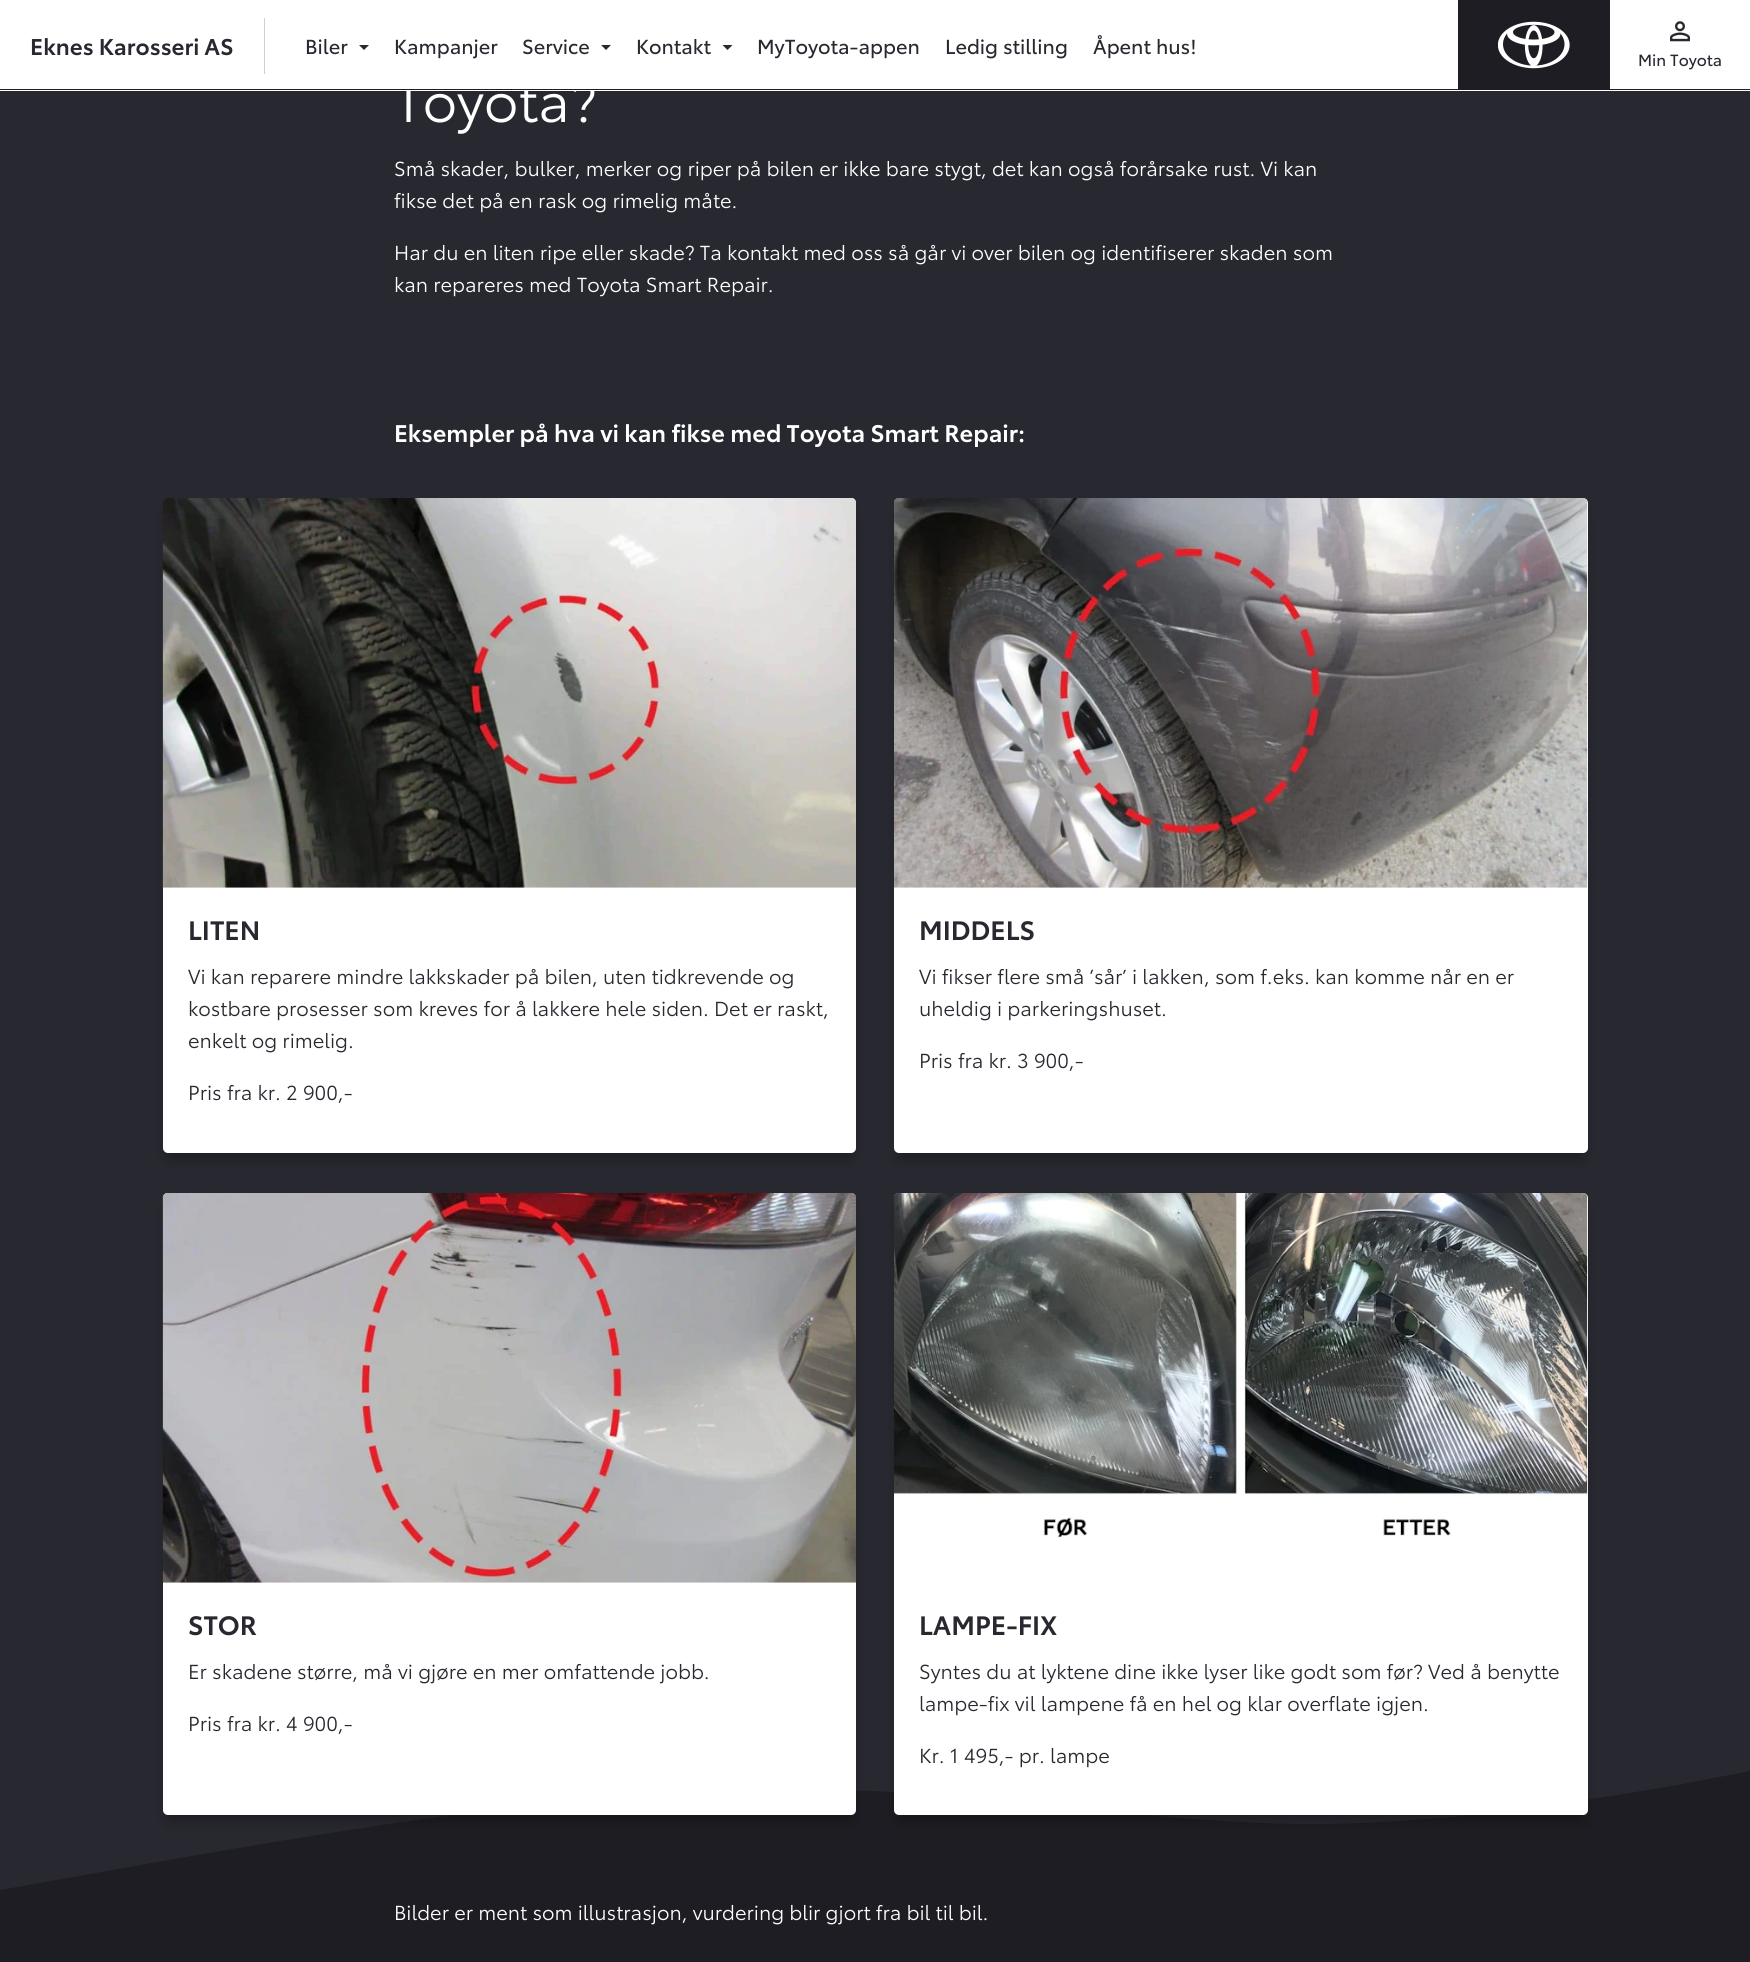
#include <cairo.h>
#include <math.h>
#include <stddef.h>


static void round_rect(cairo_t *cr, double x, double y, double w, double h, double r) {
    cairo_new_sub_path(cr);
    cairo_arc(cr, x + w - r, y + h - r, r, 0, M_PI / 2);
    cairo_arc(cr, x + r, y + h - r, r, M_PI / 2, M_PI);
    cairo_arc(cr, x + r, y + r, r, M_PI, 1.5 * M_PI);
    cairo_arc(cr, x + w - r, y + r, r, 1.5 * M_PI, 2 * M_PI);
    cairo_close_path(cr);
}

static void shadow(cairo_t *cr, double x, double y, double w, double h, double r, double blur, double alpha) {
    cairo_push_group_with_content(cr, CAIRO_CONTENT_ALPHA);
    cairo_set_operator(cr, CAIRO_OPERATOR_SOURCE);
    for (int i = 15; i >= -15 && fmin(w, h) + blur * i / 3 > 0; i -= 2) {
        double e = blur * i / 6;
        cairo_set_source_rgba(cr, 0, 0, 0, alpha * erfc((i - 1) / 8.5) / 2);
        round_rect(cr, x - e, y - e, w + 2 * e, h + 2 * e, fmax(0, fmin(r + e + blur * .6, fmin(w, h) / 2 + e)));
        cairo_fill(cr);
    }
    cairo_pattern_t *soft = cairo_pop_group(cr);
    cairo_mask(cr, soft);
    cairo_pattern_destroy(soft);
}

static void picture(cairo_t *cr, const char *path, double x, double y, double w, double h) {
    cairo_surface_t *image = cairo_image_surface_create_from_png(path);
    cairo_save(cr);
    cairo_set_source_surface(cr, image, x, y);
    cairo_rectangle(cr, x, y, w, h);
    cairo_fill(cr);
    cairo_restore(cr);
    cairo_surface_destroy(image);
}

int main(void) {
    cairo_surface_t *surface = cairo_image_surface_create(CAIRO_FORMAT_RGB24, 1750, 1962);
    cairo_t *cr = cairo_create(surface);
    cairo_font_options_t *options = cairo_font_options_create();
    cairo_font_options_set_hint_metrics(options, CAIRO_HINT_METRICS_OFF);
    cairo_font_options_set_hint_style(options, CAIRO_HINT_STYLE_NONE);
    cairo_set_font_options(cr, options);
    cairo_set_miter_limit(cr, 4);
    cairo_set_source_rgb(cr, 0.157, 0.157, 0.188);
    cairo_paint(cr);
    cairo_set_source_rgb(cr, 1, 1, 1);
    cairo_rectangle(cr, 0, 0, 1750, 91);
    cairo_fill(cr);
    cairo_set_source_rgb(cr, 0.114, 0.114, 0.137);
    cairo_rectangle(cr, 1458, 0, 152, 89);
    cairo_fill(cr);
    picture(cr, "img1.png", 1498, 21, 72, 48);
    cairo_select_font_face(cr, "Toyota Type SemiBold", CAIRO_FONT_SLANT_NORMAL, CAIRO_FONT_WEIGHT_NORMAL);
    cairo_set_font_size(cr, 22.5);
    cairo_set_source_rgb(cr, 0.157, 0.157, 0.188);
    cairo_move_to(cr, 30, 55);
    cairo_show_text(cr, "Eknes Karosseri AS");
    cairo_set_source_rgb(cr, 0.808, 0.812, 0.816);
    cairo_rectangle(cr, 264, 18, 1, 56);
    cairo_fill(cr);
    cairo_select_font_face(cr, "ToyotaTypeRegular", CAIRO_FONT_SLANT_NORMAL, CAIRO_FONT_WEIGHT_NORMAL);
    cairo_set_font_size(cr, 20);
    cairo_set_source_rgb(cr, 0.157, 0.157, 0.188);
    cairo_move_to(cr, 305, 54);
    cairo_show_text(cr, "Biler");
    cairo_new_path(cr);
    cairo_move_to(cr, 359, 45);
    cairo_line_to(cr, 369, 45);
    cairo_line_to(cr, 364, 50);
    cairo_close_path(cr);
    cairo_fill(cr);
    cairo_move_to(cr, 394, 54);
    cairo_show_text(cr, "Kampanjer");
    cairo_move_to(cr, 522, 54);
    cairo_show_text(cr, "Service");
    cairo_new_path(cr);
    cairo_move_to(cr, 601, 45);
    cairo_line_to(cr, 611, 45);
    cairo_line_to(cr, 606, 50);
    cairo_close_path(cr);
    cairo_fill(cr);
    cairo_move_to(cr, 636, 54);
    cairo_show_text(cr, "Kontakt");
    cairo_new_path(cr);
    cairo_move_to(cr, 722.5, 45);
    cairo_line_to(cr, 732.5, 45);
    cairo_line_to(cr, 727.5, 50);
    cairo_close_path(cr);
    cairo_fill(cr);
    cairo_move_to(cr, 757, 54);
    cairo_show_text(cr, "MyToyota-appen");
    cairo_move_to(cr, 945, 54);
    cairo_show_text(cr, "Ledig stilling");
    cairo_move_to(cr, 1093, 54);
    cairo_show_text(cr, "Åpent hus!");
    picture(cr, "img2.png", 1670, 21, 20, 21);
    cairo_set_font_size(cr, 16);
    cairo_move_to(cr, 1638, 66);
    cairo_show_text(cr, "Min Toyota");
    cairo_select_font_face(cr, "Toyota Type", CAIRO_FONT_SLANT_NORMAL, CAIRO_FONT_WEIGHT_NORMAL);
    cairo_set_font_size(cr, 55);
    cairo_set_source_rgb(cr, 1, 1, 1);
    cairo_move_to(cr, 394, 122);
    cairo_show_text(cr, "Toyota?");
    cairo_set_source_rgb(cr, 0.114, 0.114, 0.137);
    cairo_rectangle(cr, 0, 89, 1750, 1);
    cairo_fill(cr);
    cairo_set_font_size(cr, 20);
    cairo_set_source_rgb(cr, 1, 1, 1);
    cairo_move_to(cr, 394, 176);
    cairo_show_text(cr, "Små skader, bulker, merker og riper på bilen er ikke bare stygt, det kan også forårsake rust. Vi kan");
    cairo_move_to(cr, 394, 208);
    cairo_show_text(cr, "fikse det på en rask og rimelig måte.");
    cairo_move_to(cr, 394, 260);
    cairo_show_text(cr, "Har du en liten ripe eller skade? Ta kontakt med oss så går vi over bilen og identifiserer skaden som");
    cairo_move_to(cr, 394, 292);
    cairo_show_text(cr, "kan repareres med Toyota Smart Repair.");
    cairo_select_font_face(cr, "Toyota Type SemiBold", CAIRO_FONT_SLANT_NORMAL, CAIRO_FONT_WEIGHT_NORMAL);
    cairo_set_font_size(cr, 23.75);
    cairo_move_to(cr, 394, 442);
    cairo_show_text(cr, "Eksempler på hva vi kan fikse med Toyota Smart Repair:");
    cairo_set_source_rgb(cr, 0, 0, 0);
    shadow(cr, 168, 513, 683, 645, 0, 7.5, 0.32);
    cairo_set_source_rgb(cr, 1, 1, 1);
    round_rect(cr, 163, 498, 693, 655, 5);
    cairo_fill(cr);
    picture(cr, "img3.png", 162, 498, 694, 390);
    cairo_set_font_size(cr, 26.25);
    cairo_set_source_rgb(cr, 0.157, 0.157, 0.188);
    cairo_move_to(cr, 188, 940);
    cairo_show_text(cr, "LITEN");
    cairo_select_font_face(cr, "Toyota Type", CAIRO_FONT_SLANT_NORMAL, CAIRO_FONT_WEIGHT_NORMAL);
    cairo_set_font_size(cr, 20);
    cairo_move_to(cr, 188, 984);
    cairo_show_text(cr, "Vi kan reparere mindre lakkskader på bilen, uten tidkrevende og");
    cairo_move_to(cr, 188, 1016);
    cairo_show_text(cr, "kostbare prosesser som kreves for å lakkere hele siden. Det er raskt,");
    cairo_move_to(cr, 188, 1048);
    cairo_show_text(cr, "enkelt og rimelig.");
    cairo_move_to(cr, 188, 1100);
    cairo_show_text(cr, "Pris fra kr. 2 900,-");
    cairo_set_source_rgb(cr, 0, 0, 0);
    shadow(cr, 899, 513, 684, 645, 0, 7.5, 0.32);
    cairo_set_source_rgb(cr, 1, 1, 1);
    round_rect(cr, 894, 498, 694, 655, 5);
    cairo_fill(cr);
    picture(cr, "img4.png", 894, 498, 694, 390);
    cairo_select_font_face(cr, "Toyota Type SemiBold", CAIRO_FONT_SLANT_NORMAL, CAIRO_FONT_WEIGHT_NORMAL);
    cairo_set_font_size(cr, 26.25);
    cairo_set_source_rgb(cr, 0.157, 0.157, 0.188);
    cairo_move_to(cr, 919, 940);
    cairo_show_text(cr, "MIDDELS");
    cairo_select_font_face(cr, "Toyota Type", CAIRO_FONT_SLANT_NORMAL, CAIRO_FONT_WEIGHT_NORMAL);
    cairo_set_font_size(cr, 20);
    cairo_move_to(cr, 919, 984);
    cairo_show_text(cr, "Vi fikser flere små ’sår’ i lakken, som f.eks. kan komme når en er");
    cairo_move_to(cr, 919, 1016);
    cairo_show_text(cr, "uheldig i parkeringshuset.");
    cairo_move_to(cr, 919, 1068);
    cairo_show_text(cr, "Pris fra kr. 3 900,-");
    cairo_set_source_rgb(cr, 0.114, 0.114, 0.137);
    cairo_new_path(cr);
    cairo_move_to(cr, 1750, 1771);
    cairo_line_to(cr, 1677, 1785);
    cairo_curve_to(cr, 1604, 1797, 1458, 1824, 1312, 1824);
    cairo_curve_to(cr, 1167, 1824, 1021, 1797, 875, 1791);
    cairo_curve_to(cr, 729, 1785, 583, 1797, 438, 1817);
    cairo_curve_to(cr, 292, 1837, 146, 1864, 73, 1877);
    cairo_line_to(cr, 0, 1890);
    cairo_line_to(cr, 0, 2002);
    cairo_line_to(cr, 1750, 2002);
    cairo_close_path(cr);
    cairo_fill(cr);
    cairo_set_source_rgb(cr, 0, 0, 0);
    shadow(cr, 168, 1208, 683, 612, 0, 7.5, 0.32);
    cairo_set_source_rgb(cr, 1, 1, 1);
    round_rect(cr, 163, 1193, 693, 622, 5);
    cairo_fill(cr);
    picture(cr, "img5.png", 162, 1193, 694, 390);
    cairo_select_font_face(cr, "Toyota Type SemiBold", CAIRO_FONT_SLANT_NORMAL, CAIRO_FONT_WEIGHT_NORMAL);
    cairo_set_font_size(cr, 26.25);
    cairo_set_source_rgb(cr, 0.157, 0.157, 0.188);
    cairo_move_to(cr, 188, 1635);
    cairo_show_text(cr, "STOR");
    cairo_select_font_face(cr, "Toyota Type", CAIRO_FONT_SLANT_NORMAL, CAIRO_FONT_WEIGHT_NORMAL);
    cairo_set_font_size(cr, 20);
    cairo_move_to(cr, 188, 1679);
    cairo_show_text(cr, "Er skadene større, må vi gjøre en mer omfattende jobb.");
    cairo_move_to(cr, 188, 1731);
    cairo_show_text(cr, "Pris fra kr. 4 900,-");
    cairo_set_source_rgb(cr, 0, 0, 0);
    shadow(cr, 899, 1208, 684, 612, 0, 7.5, 0.32);
    cairo_set_source_rgb(cr, 1, 1, 1);
    round_rect(cr, 894, 1193, 694, 622, 5);
    cairo_fill(cr);
    picture(cr, "img6.png", 894, 1193, 694, 345);
    cairo_select_font_face(cr, "Toyota Type SemiBold", CAIRO_FONT_SLANT_NORMAL, CAIRO_FONT_WEIGHT_NORMAL);
    cairo_set_font_size(cr, 26.25);
    cairo_set_source_rgb(cr, 0.157, 0.157, 0.188);
    cairo_move_to(cr, 919, 1635);
    cairo_show_text(cr, "LAMPE-FIX");
    cairo_select_font_face(cr, "Toyota Type", CAIRO_FONT_SLANT_NORMAL, CAIRO_FONT_WEIGHT_NORMAL);
    cairo_set_font_size(cr, 20);
    cairo_move_to(cr, 919, 1679);
    cairo_show_text(cr, "Syntes du at lyktene dine ikke lyser like godt som før? Ved å benytte");
    cairo_move_to(cr, 919, 1711);
    cairo_show_text(cr, "lampe-fix vil lampene få en hel og klar overflate igjen.");
    cairo_move_to(cr, 919, 1763);
    cairo_show_text(cr, "Kr. 1 495,- pr. lampe");
    cairo_set_source_rgb(cr, 1, 1, 1);
    cairo_move_to(cr, 394, 1920);
    cairo_show_text(cr, "Bilder er ment som illustrasjon, vurdering blir gjort fra bil til bil.");
    cairo_surface_write_to_png(surface, "page.png");
    cairo_font_options_destroy(options);
    cairo_destroy(cr);
    cairo_surface_destroy(surface);
    return 0;
}
